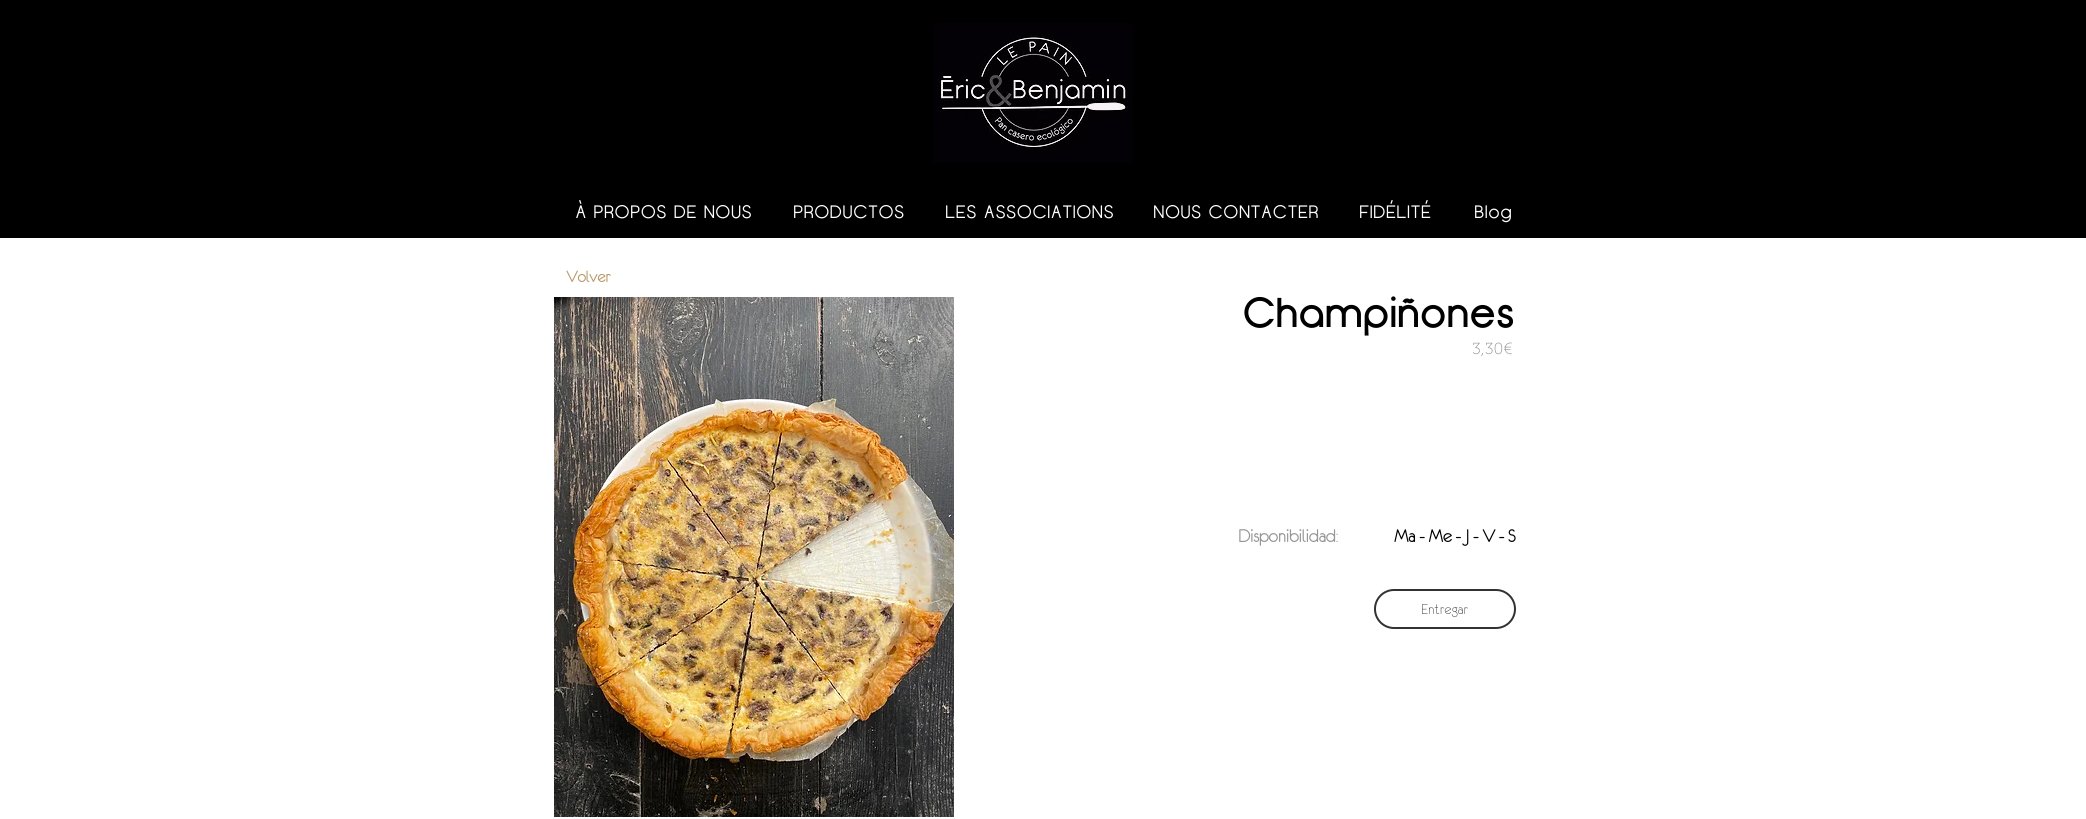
#include <cairo.h>
#include <math.h>
#include <stddef.h>


static void round_rect(cairo_t *cr, double x, double y, double w, double h, double r) {
    cairo_new_sub_path(cr);
    cairo_arc(cr, x + w - r, y + h - r, r, 0, M_PI / 2);
    cairo_arc(cr, x + r, y + h - r, r, M_PI / 2, M_PI);
    cairo_arc(cr, x + r, y + r, r, M_PI, 1.5 * M_PI);
    cairo_arc(cr, x + w - r, y + r, r, 1.5 * M_PI, 2 * M_PI);
    cairo_close_path(cr);
}

static void picture(cairo_t *cr, const char *path, double x, double y, double w, double h) {
    cairo_surface_t *image = cairo_image_surface_create_from_png(path);
    cairo_save(cr);
    cairo_set_source_surface(cr, image, x, y);
    cairo_rectangle(cr, x, y, w, h);
    cairo_fill(cr);
    cairo_restore(cr);
    cairo_surface_destroy(image);
}

int main(void) {
    cairo_surface_t *surface = cairo_image_surface_create(CAIRO_FORMAT_RGB24, 2086, 819);
    cairo_t *cr = cairo_create(surface);
    cairo_font_options_t *options = cairo_font_options_create();
    cairo_font_options_set_hint_metrics(options, CAIRO_HINT_METRICS_OFF);
    cairo_font_options_set_hint_style(options, CAIRO_HINT_STYLE_NONE);
    cairo_set_font_options(cr, options);
    cairo_set_miter_limit(cr, 4);
    cairo_set_source_rgb(cr, 1, 1, 1);
    cairo_paint(cr);
    cairo_set_source_rgb(cr, 0, 0, 0);
    cairo_rectangle(cr, 0, 0, 2086, 238);
    cairo_fill(cr);
    picture(cr, "img1.png", 933, 23, 200, 140);
    cairo_select_font_face(cr, "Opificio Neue", CAIRO_FONT_SLANT_NORMAL, CAIRO_FONT_WEIGHT_NORMAL);
    cairo_set_font_size(cr, 18);
    cairo_set_source_rgb(cr, 1, 1, 1);
    cairo_move_to(cr, 575, 218);
    cairo_show_text(cr, "À PROPOS DE NOUS");
    cairo_move_to(cr, 793, 218);
    cairo_show_text(cr, "PRODUCTOS");
    cairo_move_to(cr, 945, 218);
    cairo_show_text(cr, "LES ASSOCIATIONS");
    cairo_move_to(cr, 1153, 218);
    cairo_show_text(cr, "NOUS CONTACTER");
    cairo_move_to(cr, 1359, 218);
    cairo_show_text(cr, "FIDÉLITÉ");
    cairo_move_to(cr, 1474, 218);
    cairo_show_text(cr, "Blog");
    cairo_select_font_face(cr, "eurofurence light", CAIRO_FONT_SLANT_NORMAL, CAIRO_FONT_WEIGHT_BOLD);
    cairo_set_source_rgb(cr, 0.725, 0.596, 0.404);
    cairo_move_to(cr, 566, 282);
    cairo_show_text(cr, "Volver");
    picture(cr, "img2.png", 554, 297, 400, 520);
    cairo_select_font_face(cr, "Opificio Neue", CAIRO_FONT_SLANT_NORMAL, CAIRO_FONT_WEIGHT_BOLD);
    cairo_set_font_size(cr, 40);
    cairo_set_source_rgb(cr, 0, 0, 0);
    cairo_move_to(cr, 1242, 327);
    cairo_show_text(cr, "Champiñones");
    cairo_select_font_face(cr, "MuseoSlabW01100 Thin", CAIRO_FONT_SLANT_NORMAL, CAIRO_FONT_WEIGHT_NORMAL);
    cairo_set_font_size(cr, 16);
    cairo_set_source_rgb(cr, 0.588, 0.588, 0.588);
    cairo_move_to(cr, 1472, 354);
    cairo_show_text(cr, "3,30€");
    cairo_select_font_face(cr, "eurofurence light", CAIRO_FONT_SLANT_NORMAL, CAIRO_FONT_WEIGHT_BOLD);
    cairo_set_font_size(cr, 20);
    cairo_move_to(cr, 1238, 542);
    cairo_show_text(cr, "Disponibilidad");
    cairo_select_font_face(cr, "eurofurence light Light", CAIRO_FONT_SLANT_NORMAL, CAIRO_FONT_WEIGHT_NORMAL);
    cairo_move_to(cr, 1336, 542);
    cairo_show_text(cr, ":");
    cairo_select_font_face(cr, "eurofurence light", CAIRO_FONT_SLANT_NORMAL, CAIRO_FONT_WEIGHT_BOLD);
    cairo_set_source_rgb(cr, 0, 0, 0);
    cairo_move_to(cr, 1394, 542);
    cairo_show_text(cr, "Ma - Me - J - V - S");
    round_rect(cr, 1375, 590, 140, 38, 19);
    cairo_set_source_rgb(cr, 0.196, 0.196, 0.196);
    cairo_stroke(cr);
    cairo_select_font_face(cr, "eurofurence light Light", CAIRO_FONT_SLANT_NORMAL, CAIRO_FONT_WEIGHT_NORMAL);
    cairo_set_font_size(cr, 16);
    cairo_move_to(cr, 1421, 614);
    cairo_show_text(cr, "Entregar");
    cairo_surface_write_to_png(surface, "page.png");
    cairo_font_options_destroy(options);
    cairo_destroy(cr);
    cairo_surface_destroy(surface);
    return 0;
}
